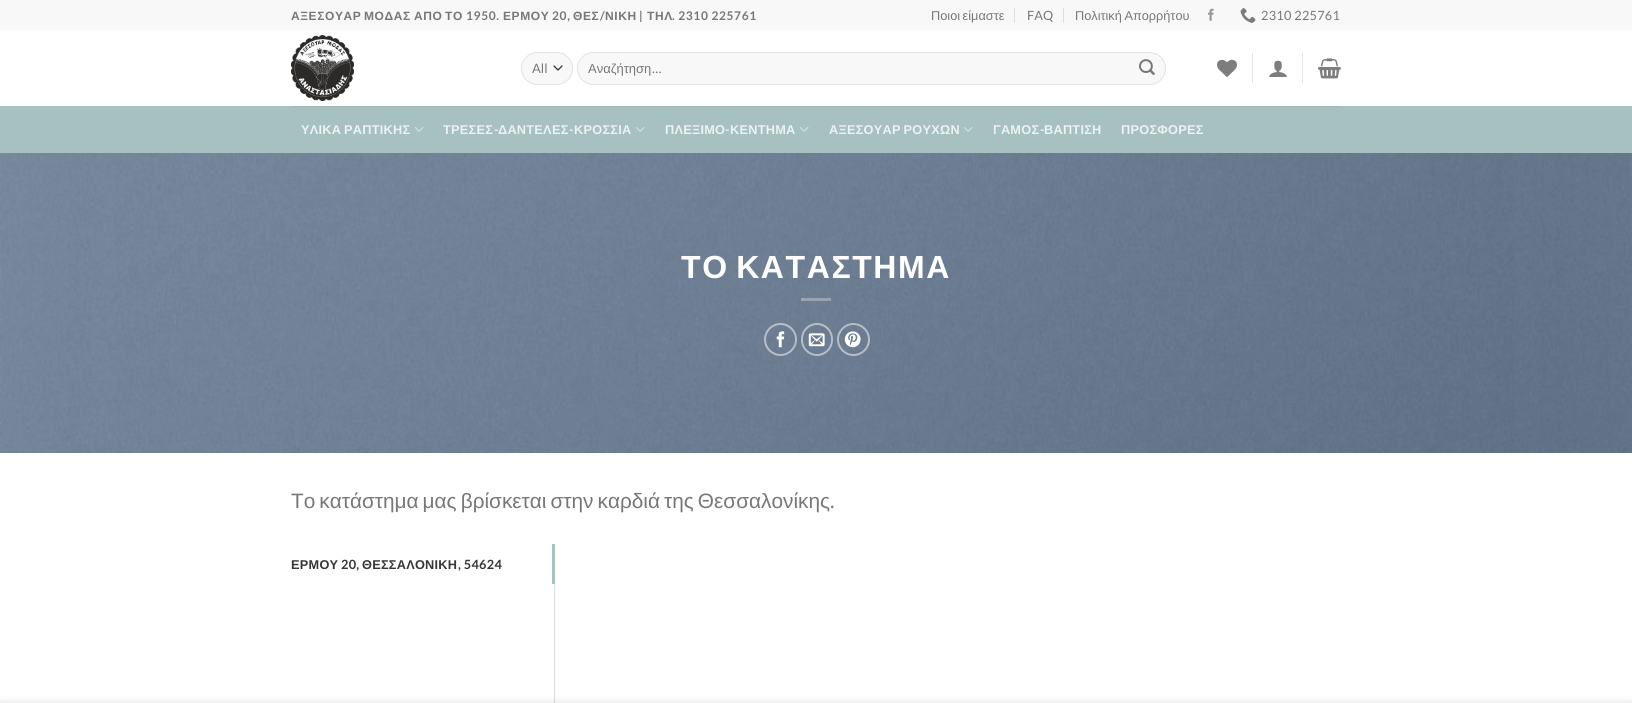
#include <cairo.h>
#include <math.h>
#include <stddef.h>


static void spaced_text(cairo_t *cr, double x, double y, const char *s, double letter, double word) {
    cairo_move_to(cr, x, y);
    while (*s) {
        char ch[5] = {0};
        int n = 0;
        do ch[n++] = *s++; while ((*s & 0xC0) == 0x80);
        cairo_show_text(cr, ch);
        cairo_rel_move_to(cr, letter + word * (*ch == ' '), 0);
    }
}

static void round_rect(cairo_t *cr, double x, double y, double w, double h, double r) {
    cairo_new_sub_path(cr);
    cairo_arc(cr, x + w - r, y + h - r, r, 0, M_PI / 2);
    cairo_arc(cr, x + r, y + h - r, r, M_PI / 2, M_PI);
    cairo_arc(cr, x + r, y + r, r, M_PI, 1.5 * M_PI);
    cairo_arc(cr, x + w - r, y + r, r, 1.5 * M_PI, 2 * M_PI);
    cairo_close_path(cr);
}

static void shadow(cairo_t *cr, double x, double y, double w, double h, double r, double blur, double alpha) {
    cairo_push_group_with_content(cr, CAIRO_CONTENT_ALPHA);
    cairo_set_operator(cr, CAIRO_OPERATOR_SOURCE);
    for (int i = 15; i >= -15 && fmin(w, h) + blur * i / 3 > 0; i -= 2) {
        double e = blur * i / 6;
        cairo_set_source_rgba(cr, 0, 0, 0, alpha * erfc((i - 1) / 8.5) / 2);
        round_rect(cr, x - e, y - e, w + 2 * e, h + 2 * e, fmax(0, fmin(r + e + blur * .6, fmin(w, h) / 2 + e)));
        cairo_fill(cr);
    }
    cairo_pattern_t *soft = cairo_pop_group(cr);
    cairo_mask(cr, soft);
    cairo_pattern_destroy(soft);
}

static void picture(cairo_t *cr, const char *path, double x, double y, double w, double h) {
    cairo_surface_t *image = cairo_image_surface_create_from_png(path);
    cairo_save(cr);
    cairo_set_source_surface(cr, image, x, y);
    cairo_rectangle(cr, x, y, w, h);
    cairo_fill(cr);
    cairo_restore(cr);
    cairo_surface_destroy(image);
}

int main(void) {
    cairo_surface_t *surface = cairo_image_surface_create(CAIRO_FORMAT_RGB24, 1632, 703);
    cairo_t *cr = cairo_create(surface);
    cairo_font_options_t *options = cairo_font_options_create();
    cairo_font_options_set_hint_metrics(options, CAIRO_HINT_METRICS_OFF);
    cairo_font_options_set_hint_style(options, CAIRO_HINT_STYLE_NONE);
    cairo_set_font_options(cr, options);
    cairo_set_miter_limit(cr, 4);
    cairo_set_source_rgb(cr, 1, 1, 1);
    cairo_paint(cr);
    cairo_set_source_rgb(cr, 0.969, 0.969, 0.969);
    cairo_rectangle(cr, 0, 0, 1632, 30);
    cairo_fill(cr);
    cairo_select_font_face(cr, "Liberation Sans", CAIRO_FONT_SLANT_NORMAL, CAIRO_FONT_WEIGHT_BOLD);
    cairo_set_font_size(cr, 12);
    cairo_set_source_rgb(cr, 0.467, 0.467, 0.467);
    spaced_text(cr, 291, 20, "ΑΞΕΣΟΥΑΡ", 0.6, 0);
    spaced_text(cr, 364, 20, "ΜΟΔΑΣ", 0.6, 0);
    spaced_text(cr, 414, 20, "ΑΠΟ", 0.6, 0);
    spaced_text(cr, 445, 20, "ΤΟ", 0.6, 0);
    cairo_select_font_face(cr, "Lato", CAIRO_FONT_SLANT_NORMAL, CAIRO_FONT_WEIGHT_BOLD);
    spaced_text(cr, 466, 20, "1950.", 0.6, 0);
    cairo_select_font_face(cr, "Liberation Sans", CAIRO_FONT_SLANT_NORMAL, CAIRO_FONT_WEIGHT_BOLD);
    spaced_text(cr, 503, 20, "ΕΡΜΟΥ", 0.6, 0);
    cairo_select_font_face(cr, "Lato", CAIRO_FONT_SLANT_NORMAL, CAIRO_FONT_WEIGHT_BOLD);
    spaced_text(cr, 552, 20, "20,", 0.6, 0);
    cairo_select_font_face(cr, "Liberation Sans", CAIRO_FONT_SLANT_NORMAL, CAIRO_FONT_WEIGHT_BOLD);
    spaced_text(cr, 573, 20, "ΘΕΣ", 0.6, 0);
    cairo_select_font_face(cr, "Lato", CAIRO_FONT_SLANT_NORMAL, CAIRO_FONT_WEIGHT_BOLD);
    spaced_text(cr, 600, 20, "/", 0.6, 0);
    cairo_select_font_face(cr, "Liberation Sans", CAIRO_FONT_SLANT_NORMAL, CAIRO_FONT_WEIGHT_BOLD);
    spaced_text(cr, 605, 20, "ΝΙΚΗ", 0.6, 0);
    cairo_select_font_face(cr, "Lato", CAIRO_FONT_SLANT_NORMAL, CAIRO_FONT_WEIGHT_BOLD);
    spaced_text(cr, 639, 20, "|", 0.6, 0);
    cairo_select_font_face(cr, "Liberation Sans", CAIRO_FONT_SLANT_NORMAL, CAIRO_FONT_WEIGHT_BOLD);
    spaced_text(cr, 647, 20, "ΤΗΛ", 0.6, 0);
    cairo_select_font_face(cr, "Lato", CAIRO_FONT_SLANT_NORMAL, CAIRO_FONT_WEIGHT_BOLD);
    spaced_text(cr, 672, 20, ". 2310 225761", 0.6, 0);
    cairo_select_font_face(cr, "Liberation Sans", CAIRO_FONT_SLANT_NORMAL, CAIRO_FONT_WEIGHT_NORMAL);
    cairo_set_font_size(cr, 12.75);
    spaced_text(cr, 931, 20, "Ποιοι είμαστε", 0, -1);
    cairo_set_source_rgb(cr, 0.871, 0.871, 0.871);
    cairo_rectangle(cr, 1014, 8, 1, 15);
    cairo_fill(cr);
    cairo_select_font_face(cr, "Lato", CAIRO_FONT_SLANT_NORMAL, CAIRO_FONT_WEIGHT_NORMAL);
    cairo_set_source_rgb(cr, 0.467, 0.467, 0.467);
    cairo_move_to(cr, 1027, 20);
    cairo_show_text(cr, "FAQ");
    cairo_set_source_rgb(cr, 0.871, 0.871, 0.871);
    cairo_rectangle(cr, 1063, 8, 1, 15);
    cairo_fill(cr);
    cairo_select_font_face(cr, "Liberation Sans", CAIRO_FONT_SLANT_NORMAL, CAIRO_FONT_WEIGHT_NORMAL);
    cairo_set_source_rgb(cr, 0.467, 0.467, 0.467);
    spaced_text(cr, 1075, 20, "Πολιτική Απορρήτου", 0, -1);
    picture(cr, "img1.png", 1208, 8, 6, 13);
    picture(cr, "img2.png", 1240, 8, 16, 15);
    cairo_select_font_face(cr, "Lato", CAIRO_FONT_SLANT_NORMAL, CAIRO_FONT_WEIGHT_NORMAL);
    spaced_text(cr, 1261, 20, "2310 225761", 0.25, 0);
    picture(cr, "img3.png", 291, 35, 63, 66);
    cairo_set_source_rgb(cr, 0.969, 0.969, 0.969);
    round_rect(cr, 521, 52, 52, 33, 16.5);
    cairo_fill(cr);
    cairo_new_path(cr);
    cairo_move_to(cr, 554, 66);
    cairo_line_to(cr, 558, 70);
    cairo_line_to(cr, 562, 66);
    cairo_set_source_rgb(cr, 0.2, 0.2, 0.2);
    cairo_set_line_width(cr, 1.3);
    cairo_set_line_cap(cr, CAIRO_LINE_CAP_ROUND);
    cairo_set_line_join(cr, CAIRO_LINE_JOIN_ROUND);
    cairo_stroke(cr);
    round_rect(cr, 521.5, 52.5, 51, 32, 16);
    cairo_set_source_rgba(cr, 0, 0, 0, 0.09);
    cairo_set_line_width(cr, 1);
    cairo_set_line_cap(cr, CAIRO_LINE_CAP_BUTT);
    cairo_set_line_join(cr, CAIRO_LINE_JOIN_MITER);
    cairo_stroke(cr);
    cairo_set_font_size(cr, 13);
    cairo_set_source_rgb(cr, 0.467, 0.467, 0.467);
    cairo_move_to(cr, 532, 73);
    cairo_show_text(cr, "All");
    cairo_set_source_rgb(cr, 0.969, 0.969, 0.969);
    round_rect(cr, 577, 52, 589, 33, 16.5);
    cairo_fill(cr);
    round_rect(cr, 577.5, 52.5, 588, 32, 16);
    cairo_set_source_rgba(cr, 0, 0, 0, 0.09);
    cairo_stroke(cr);
    cairo_select_font_face(cr, "Liberation Sans", CAIRO_FONT_SLANT_NORMAL, CAIRO_FONT_WEIGHT_NORMAL);
    cairo_set_source_rgb(cr, 0.467, 0.467, 0.467);
    cairo_move_to(cr, 588, 73);
    cairo_show_text(cr, "Αναζήτηση");
    cairo_select_font_face(cr, "Lato", CAIRO_FONT_SLANT_NORMAL, CAIRO_FONT_WEIGHT_NORMAL);
    cairo_move_to(cr, 652, 73);
    cairo_show_text(cr, "…");
    picture(cr, "img4.png", 1139, 59, 16, 16);
    picture(cr, "img5.png", 1217, 59, 20, 18);
    cairo_set_source_rgb(cr, 0.902, 0.902, 0.902);
    cairo_rectangle(cr, 1252, 53, 1, 30);
    cairo_fill(cr);
    picture(cr, "img6.png", 1269, 60, 18, 17);
    cairo_rectangle(cr, 1302, 53, 1, 30);
    cairo_fill(cr);
    picture(cr, "img7.png", 1318, 58, 23, 21);
    cairo_set_source_rgb(cr, 0.655, 0.753, 0.753);
    cairo_rectangle(cr, 0, 106, 1632, 47);
    cairo_fill(cr);
    cairo_set_source_rgb(cr, 0.635, 0.725, 0.725);
    cairo_rectangle(cr, 291, 106, 1050, 1);
    cairo_fill(cr);
    cairo_select_font_face(cr, "Liberation Sans", CAIRO_FONT_SLANT_NORMAL, CAIRO_FONT_WEIGHT_BOLD);
    cairo_set_font_size(cr, 12.75);
    cairo_set_source_rgb(cr, 0.929, 0.949, 0.949);
    spaced_text(cr, 301, 134, "ΥΛΙΚΑ ΡΑΠΤΙΚΗΣ", 0.25, -1);
    picture(cr, "img8.png", 414, 127, 10, 5);
    spaced_text(cr, 443, 134, "ΤΡΕΣΕΣ", 0.25, 0);
    cairo_select_font_face(cr, "Lato", CAIRO_FONT_SLANT_NORMAL, CAIRO_FONT_WEIGHT_BOLD);
    spaced_text(cr, 494, 134, "-", 0.25, 0);
    cairo_select_font_face(cr, "Liberation Sans", CAIRO_FONT_SLANT_NORMAL, CAIRO_FONT_WEIGHT_BOLD);
    spaced_text(cr, 498, 134, "ΔΑΝΤΕΛΕΣ", 0.25, 0);
    cairo_select_font_face(cr, "Lato", CAIRO_FONT_SLANT_NORMAL, CAIRO_FONT_WEIGHT_BOLD);
    spaced_text(cr, 569, 134, "-", 0.25, 0);
    cairo_select_font_face(cr, "Liberation Sans", CAIRO_FONT_SLANT_NORMAL, CAIRO_FONT_WEIGHT_BOLD);
    spaced_text(cr, 574, 134, "ΚΡΟΣΣΙΑ", 0.25, 0);
    picture(cr, "img8.png", 635, 127, 10, 5);
    spaced_text(cr, 665, 134, "ΠΛΕΞΙΜΟ", 0.25, 0);
    cairo_select_font_face(cr, "Lato", CAIRO_FONT_SLANT_NORMAL, CAIRO_FONT_WEIGHT_BOLD);
    spaced_text(cr, 725, 134, "-", 0.25, 0);
    cairo_select_font_face(cr, "Liberation Sans", CAIRO_FONT_SLANT_NORMAL, CAIRO_FONT_WEIGHT_BOLD);
    spaced_text(cr, 730, 134, "ΚΕΝΤΗΜΑ", 0.25, 0);
    picture(cr, "img8.png", 799, 127, 10, 5);
    spaced_text(cr, 829, 134, "ΑΞΕΣΟΥΑΡ ΡΟΥΧΩΝ", 0.25, -1);
    picture(cr, "img8.png", 963, 127, 10, 5);
    spaced_text(cr, 993, 134, "ΓΑΜΟΣ", 0.25, 0);
    cairo_select_font_face(cr, "Lato", CAIRO_FONT_SLANT_NORMAL, CAIRO_FONT_WEIGHT_BOLD);
    spaced_text(cr, 1040, 134, "-", 0.25, 0);
    cairo_select_font_face(cr, "Liberation Sans", CAIRO_FONT_SLANT_NORMAL, CAIRO_FONT_WEIGHT_BOLD);
    spaced_text(cr, 1044, 134, "ΒΑΠΤΙΣΗ", 0.25, 0);
    spaced_text(cr, 1121, 134, "ΠΡΟΣΦΟΡΕΣ", 0.25, 0);
    picture(cr, "img9.png", 0, 153, 1632, 300);
    cairo_set_font_size(cr, 32);
    cairo_set_source_rgb(cr, 1, 1, 1);
    spaced_text(cr, 681, 278, "ΤΟ ΚΑΤΑΣΤΗΜΑ", 1.6, -3);
    cairo_set_source_rgba(cr, 1, 1, 1, 0.3);
    cairo_rectangle(cr, 801, 298, 30, 3);
    cairo_fill(cr);
    cairo_arc(cr, 780.5, 339.5, 15.5, 0, 2 * M_PI);
    cairo_set_source_rgba(cr, 1, 1, 1, 0.5);
    cairo_set_line_width(cr, 2);
    cairo_stroke(cr);
    picture(cr, "img10.png", 776, 331, 9, 17);
    round_rect(cr, 802, 324, 30, 31, 15);
    cairo_stroke(cr);
    picture(cr, "img11.png", 808, 333, 17, 14);
    cairo_arc(cr, 853.5, 339.5, 15.5, 0, 2 * M_PI);
    cairo_stroke(cr);
    picture(cr, "img12.png", 844, 331, 17, 17);
    cairo_select_font_face(cr, "Liberation Sans", CAIRO_FONT_SLANT_NORMAL, CAIRO_FONT_WEIGHT_NORMAL);
    cairo_set_font_size(cr, 20.8);
    cairo_set_source_rgb(cr, 0.467, 0.467, 0.467);
    spaced_text(cr, 291, 508, "Το κατάστημα μας βρίσκεται στην καρδιά της Θεσσαλονίκης", 0, -1.75);
    cairo_select_font_face(cr, "Lato", CAIRO_FONT_SLANT_NORMAL, CAIRO_FONT_WEIGHT_NORMAL);
    cairo_move_to(cr, 830, 508);
    cairo_show_text(cr, ".");
    cairo_select_font_face(cr, "Liberation Sans", CAIRO_FONT_SLANT_NORMAL, CAIRO_FONT_WEIGHT_BOLD);
    cairo_set_font_size(cr, 12.75);
    cairo_set_source_rgb(cr, 0.212, 0.212, 0.212);
    spaced_text(cr, 291, 569, "ΕΡΜΟΥ", 0.25, 0);
    cairo_select_font_face(cr, "Lato", CAIRO_FONT_SLANT_NORMAL, CAIRO_FONT_WEIGHT_BOLD);
    spaced_text(cr, 341, 569, "20,", 0.25, 0);
    cairo_select_font_face(cr, "Liberation Sans", CAIRO_FONT_SLANT_NORMAL, CAIRO_FONT_WEIGHT_BOLD);
    spaced_text(cr, 362, 569, "ΘΕΣΣΑΛΟΝΙΚΗ", 0.25, 0);
    cairo_select_font_face(cr, "Lato", CAIRO_FONT_SLANT_NORMAL, CAIRO_FONT_WEIGHT_BOLD);
    spaced_text(cr, 458, 569, ", 54624", 0.25, 0);
    cairo_set_source_rgb(cr, 0.655, 0.753, 0.753);
    cairo_rectangle(cr, 552, 544, 3, 40);
    cairo_fill(cr);
    cairo_set_source_rgb(cr, 0.867, 0.867, 0.867);
    cairo_rectangle(cr, 554, 584, 1, 119);
    cairo_fill(cr);
    cairo_set_source_rgb(cr, 0, 0, 0);
    shadow(cr, 0, 703, 1632, 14, 0, 4.5, 0.14);
    cairo_surface_write_to_png(surface, "page.png");
    cairo_font_options_destroy(options);
    cairo_destroy(cr);
    cairo_surface_destroy(surface);
    return 0;
}
